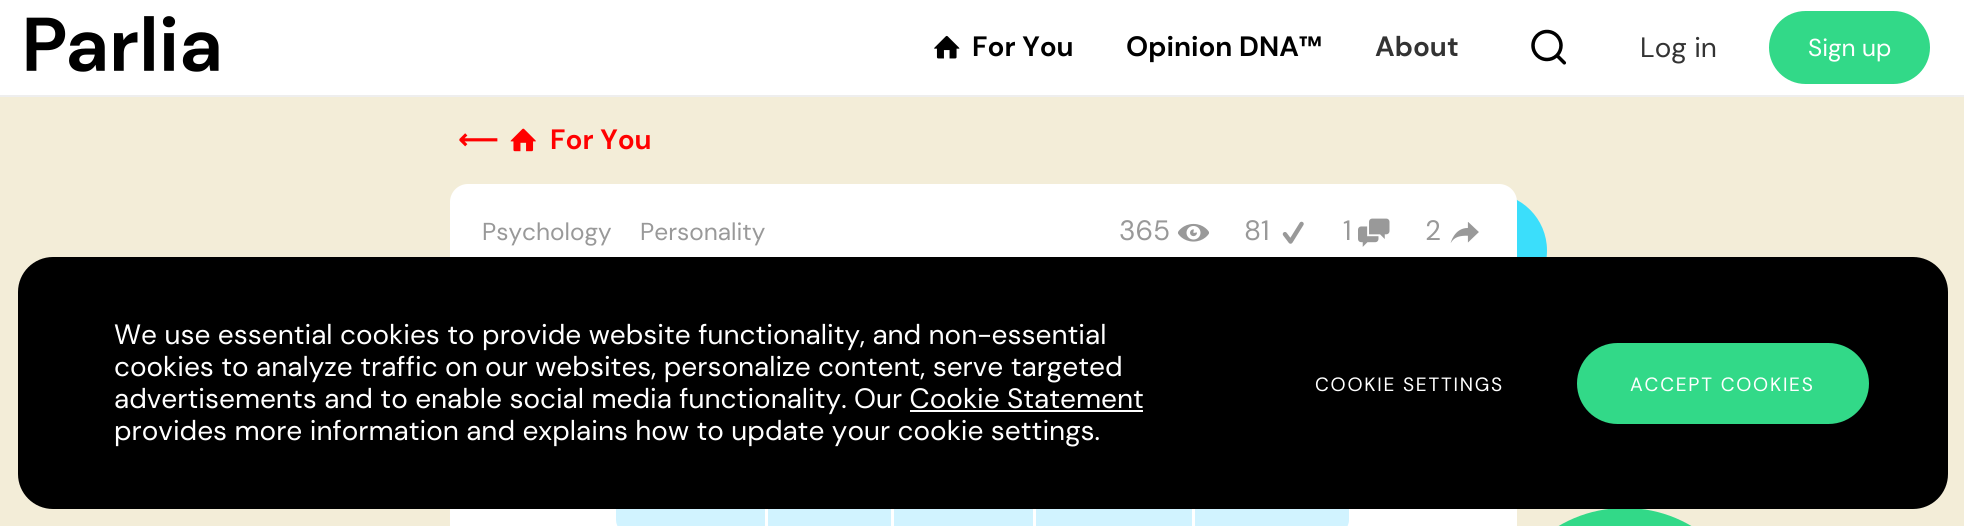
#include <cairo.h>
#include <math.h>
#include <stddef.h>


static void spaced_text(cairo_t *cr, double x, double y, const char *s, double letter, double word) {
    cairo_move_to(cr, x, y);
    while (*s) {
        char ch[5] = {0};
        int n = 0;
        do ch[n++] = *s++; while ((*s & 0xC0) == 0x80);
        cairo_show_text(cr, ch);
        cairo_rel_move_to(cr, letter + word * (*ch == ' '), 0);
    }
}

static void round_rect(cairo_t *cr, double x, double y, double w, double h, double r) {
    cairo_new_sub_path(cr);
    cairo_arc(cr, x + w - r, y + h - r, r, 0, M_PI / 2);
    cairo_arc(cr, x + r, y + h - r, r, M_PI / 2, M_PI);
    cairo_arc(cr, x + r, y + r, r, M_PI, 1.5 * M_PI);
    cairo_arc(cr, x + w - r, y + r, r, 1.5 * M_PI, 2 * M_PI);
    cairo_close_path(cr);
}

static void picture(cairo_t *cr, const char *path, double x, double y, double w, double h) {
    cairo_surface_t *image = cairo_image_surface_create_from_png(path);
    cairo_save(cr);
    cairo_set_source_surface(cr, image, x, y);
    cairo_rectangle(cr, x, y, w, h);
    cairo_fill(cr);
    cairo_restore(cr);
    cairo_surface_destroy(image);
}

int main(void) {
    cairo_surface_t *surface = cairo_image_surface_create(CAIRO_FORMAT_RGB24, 1964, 526);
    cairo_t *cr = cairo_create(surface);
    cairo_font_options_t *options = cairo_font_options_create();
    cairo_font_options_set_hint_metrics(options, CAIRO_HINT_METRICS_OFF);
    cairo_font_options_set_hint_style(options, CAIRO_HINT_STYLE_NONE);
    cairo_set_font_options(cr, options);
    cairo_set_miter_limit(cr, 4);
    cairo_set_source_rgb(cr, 0.953, 0.929, 0.847);
    cairo_paint(cr);
    cairo_set_source_rgb(cr, 1, 1, 1);
    cairo_rectangle(cr, 0, 0, 1964, 95);
    cairo_fill(cr);
    cairo_set_source_rgb(cr, 0.933, 0.933, 0.933);
    cairo_rectangle(cr, 0, 95, 1964, 2);
    cairo_fill(cr);
    picture(cr, "img1.png", 26, 16, 193, 56);
    picture(cr, "img2.png", 934, 35, 26, 24);
    cairo_select_font_face(cr, "DM Sans", CAIRO_FONT_SLANT_NORMAL, CAIRO_FONT_WEIGHT_BOLD);
    cairo_set_font_size(cr, 28);
    cairo_set_source_rgb(cr, 0, 0, 0);
    cairo_move_to(cr, 972, 56);
    cairo_show_text(cr, "For You");
    cairo_move_to(cr, 1126, 56);
    cairo_show_text(cr, "Opinion DNA™");
    cairo_set_source_rgb(cr, 0.2, 0.2, 0.2);
    cairo_move_to(cr, 1375, 56);
    cairo_show_text(cr, "About");
    picture(cr, "img3.png", 1531, 29, 36, 36);
    cairo_select_font_face(cr, "DM Sans", CAIRO_FONT_SLANT_NORMAL, CAIRO_FONT_WEIGHT_NORMAL);
    cairo_move_to(cr, 1640, 57);
    cairo_show_text(cr, "Log in");
    cairo_set_source_rgb(cr, 0.196, 0.851, 0.533);
    round_rect(cr, 1771, 13, 157, 69, 34.5);
    cairo_fill_preserve(cr);
    cairo_set_line_width(cr, 4);
    cairo_stroke(cr);
    cairo_set_font_size(cr, 24.5);
    cairo_set_source_rgb(cr, 1, 1, 1);
    cairo_move_to(cr, 1808, 56);
    cairo_show_text(cr, "Sign up");
    cairo_select_font_face(cr, "DejaVu Sans", CAIRO_FONT_SLANT_NORMAL, CAIRO_FONT_WEIGHT_BOLD);
    cairo_set_font_size(cr, 28);
    cairo_set_source_rgb(cr, 1, 0, 0);
    cairo_move_to(cr, 458, 149);
    cairo_show_text(cr, "⟵");
    picture(cr, "img4.png", 510, 128, 26, 24);
    cairo_select_font_face(cr, "DM Sans", CAIRO_FONT_SLANT_NORMAL, CAIRO_FONT_WEIGHT_BOLD);
    cairo_move_to(cr, 550, 149);
    cairo_show_text(cr, "For You");
    cairo_set_source_rgb(cr, 0.231, 0.871, 0.984);
    cairo_new_path(cr);
    cairo_arc(cr, 1489.5, 250.5, 57.5, 0, 2 * M_PI);
    cairo_fill(cr);
    cairo_set_source_rgb(cr, 0.196, 0.851, 0.533);
    round_rect(cr, 1495, 508, 260, 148, 129.5);
    cairo_fill(cr);
    cairo_set_source_rgb(cr, 1, 1, 1);
    round_rect(cr, 450, 184, 1067, 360, 18);
    cairo_fill(cr);
    cairo_select_font_face(cr, "DM Sans", CAIRO_FONT_SLANT_NORMAL, CAIRO_FONT_WEIGHT_NORMAL);
    cairo_set_font_size(cr, 24.5);
    cairo_set_source_rgb(cr, 0.6, 0.6, 0.6);
    cairo_move_to(cr, 482, 240);
    cairo_show_text(cr, "Psychology");
    cairo_move_to(cr, 640, 240);
    cairo_show_text(cr, "Personality");
    cairo_set_font_size(cr, 28);
    cairo_move_to(cr, 1119, 240);
    cairo_show_text(cr, "365");
    picture(cr, "img5.png", 1178, 223, 31, 19);
    cairo_move_to(cr, 1244, 240);
    cairo_show_text(cr, "81");
    picture(cr, "img6.png", 1282, 221, 22, 23);
    cairo_move_to(cr, 1343, 240);
    cairo_show_text(cr, "1");
    picture(cr, "img7.png", 1358, 218, 32, 29);
    cairo_move_to(cr, 1425, 240);
    cairo_show_text(cr, "2");
    picture(cr, "img8.png", 1450, 222, 29, 21);
    cairo_set_source_rgb(cr, 0.82, 0.953, 1);
    cairo_new_path(cr);
    cairo_move_to(cr, 630, 453);
    cairo_line_to(cr, 765, 453);
    cairo_line_to(cr, 765, 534);
    cairo_line_to(cr, 630, 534);
    cairo_curve_to(cr, 622.5, 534, 616, 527.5, 616, 520);
    cairo_line_to(cr, 616, 467);
    cairo_curve_to(cr, 616, 459.5, 622.5, 453, 630, 453);
    cairo_close_path(cr);
    cairo_fill(cr);
    cairo_rectangle(cr, 768, 509, 123, 17);
    cairo_fill(cr);
    cairo_rectangle(cr, 894, 509, 139, 17);
    cairo_fill(cr);
    cairo_rectangle(cr, 1036, 509, 156, 17);
    cairo_fill(cr);
    cairo_new_path(cr);
    cairo_move_to(cr, 1195, 453);
    cairo_line_to(cr, 1335, 453);
    cairo_curve_to(cr, 1342.5, 453, 1349, 459.5, 1349, 467);
    cairo_line_to(cr, 1349, 520);
    cairo_curve_to(cr, 1349, 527.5, 1342.5, 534, 1335, 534);
    cairo_line_to(cr, 1195, 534);
    cairo_close_path(cr);
    cairo_fill(cr);
    cairo_set_source_rgb(cr, 0, 0, 0);
    round_rect(cr, 18, 257, 1930, 252, 35);
    cairo_fill(cr);
    cairo_set_source_rgb(cr, 1, 1, 1);
    cairo_move_to(cr, 114, 344);
    cairo_show_text(cr, "We use essential cookies to provide website functionality, and non-essential");
    cairo_move_to(cr, 114, 376);
    cairo_show_text(cr, "cookies to analyze traffic on our websites, personalize content, serve targeted");
    cairo_move_to(cr, 114, 408);
    cairo_show_text(cr, "advertisements and to enable social media functionality. Our Cookie Statement");
    cairo_rectangle(cr, 910, 410, 233, 2);
    cairo_fill(cr);
    cairo_move_to(cr, 114, 440);
    cairo_show_text(cr, "provides more information and explains how to update your cookie settings.");
    cairo_set_font_size(cr, 19.25);
    spaced_text(cr, 1315, 391, "COOKIE SETTINGS", 1.75, 0);
    cairo_set_source_rgb(cr, 0.196, 0.851, 0.533);
    round_rect(cr, 1577, 343, 292, 81, 40.5);
    cairo_fill(cr);
    cairo_set_source_rgb(cr, 1, 1, 1);
    spaced_text(cr, 1630, 391, "ACCEPT COOKIES", 1.75, 0);
    cairo_surface_write_to_png(surface, "page.png");
    cairo_font_options_destroy(options);
    cairo_destroy(cr);
    cairo_surface_destroy(surface);
    return 0;
}
